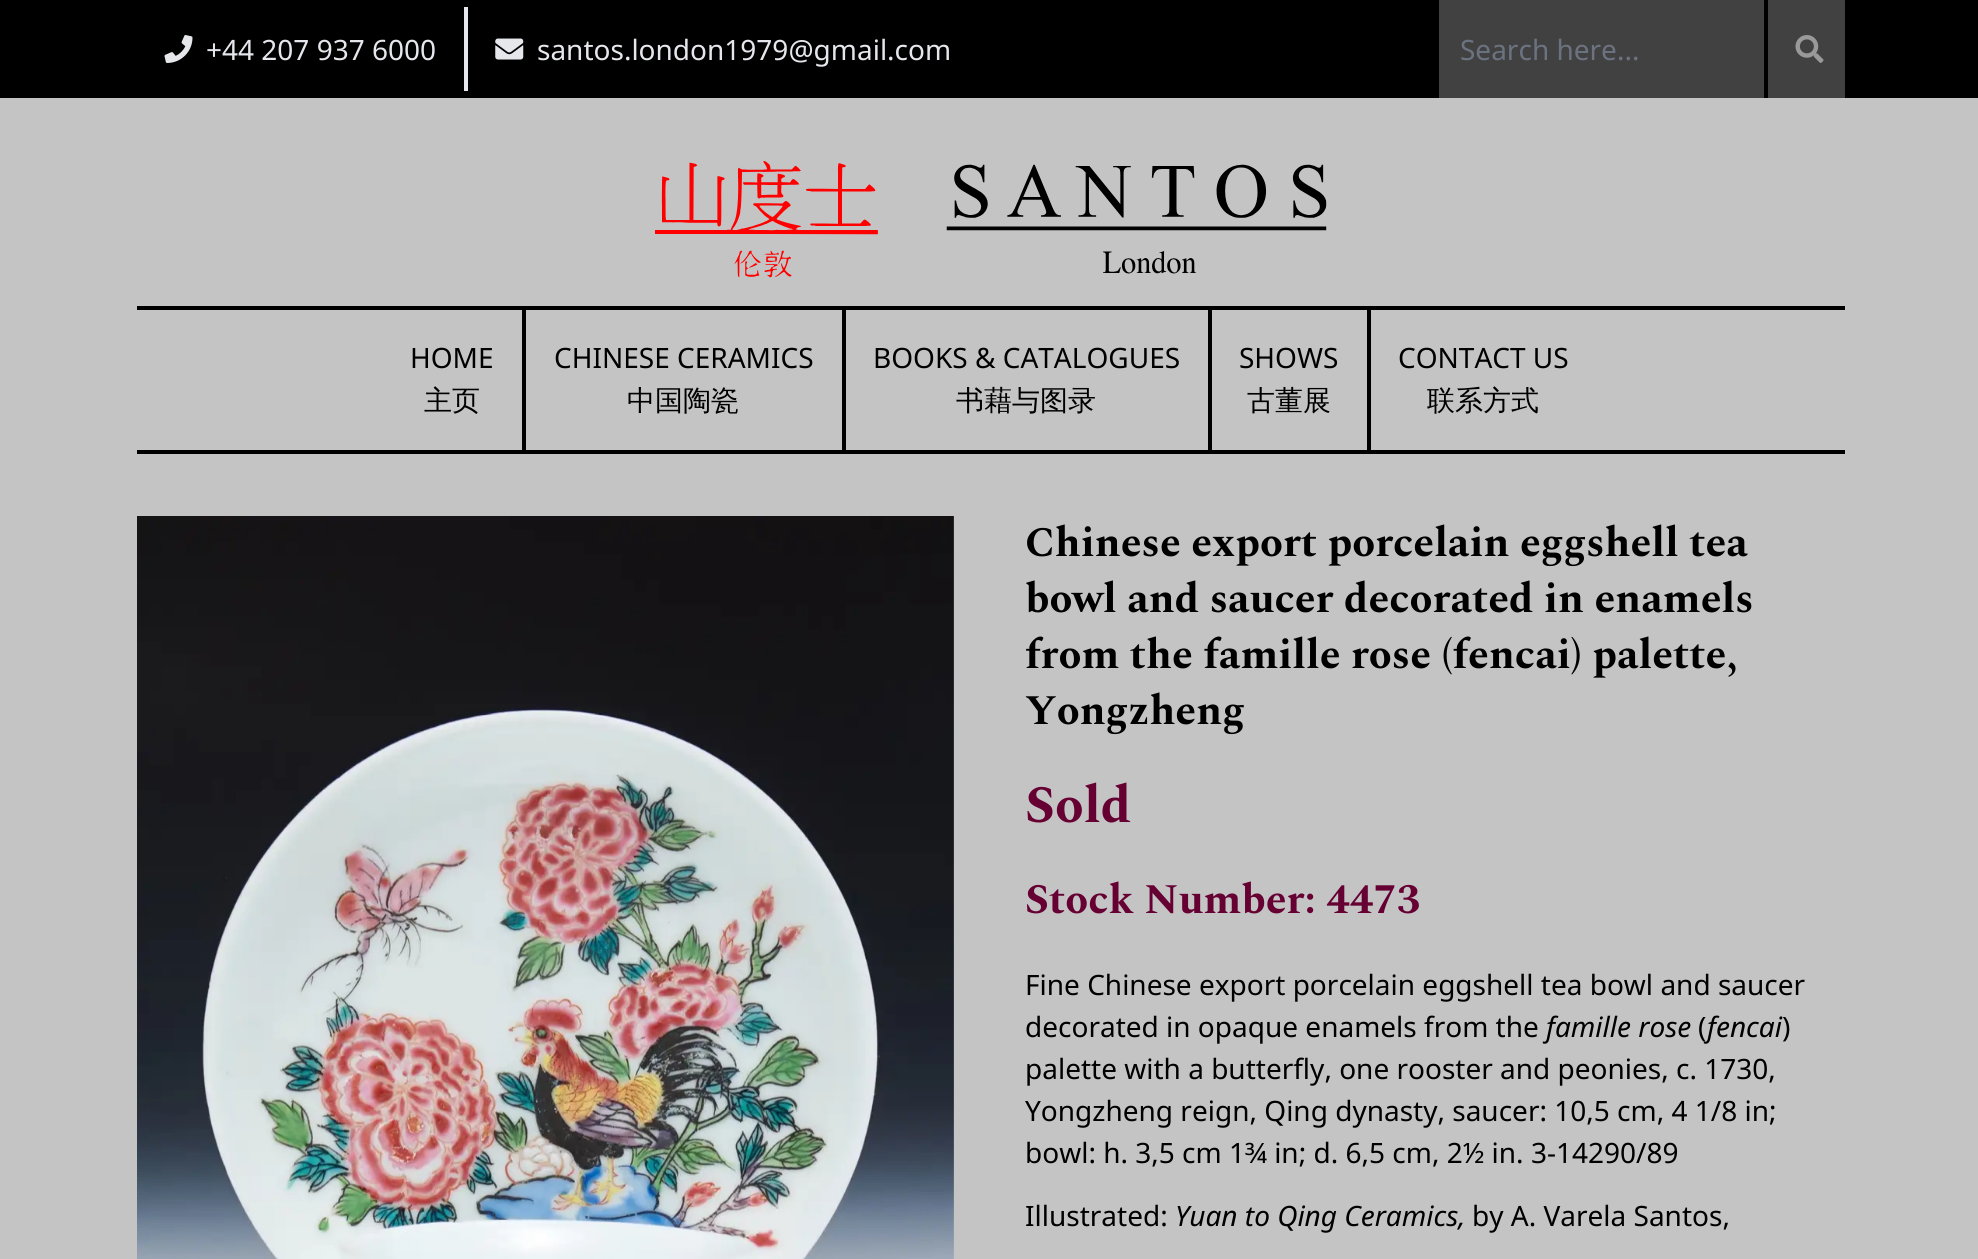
#include <cairo.h>
#include <math.h>
#include <stddef.h>


static void picture(cairo_t *cr, const char *path, double x, double y, double w, double h) {
    cairo_surface_t *image = cairo_image_surface_create_from_png(path);
    cairo_save(cr);
    cairo_set_source_surface(cr, image, x, y);
    cairo_rectangle(cr, x, y, w, h);
    cairo_fill(cr);
    cairo_restore(cr);
    cairo_surface_destroy(image);
}

int main(void) {
    cairo_surface_t *surface = cairo_image_surface_create(CAIRO_FORMAT_RGB24, 1978, 1259);
    cairo_t *cr = cairo_create(surface);
    cairo_font_options_t *options = cairo_font_options_create();
    cairo_font_options_set_hint_metrics(options, CAIRO_HINT_METRICS_OFF);
    cairo_font_options_set_hint_style(options, CAIRO_HINT_STYLE_NONE);
    cairo_set_font_options(cr, options);
    cairo_set_miter_limit(cr, 4);
    cairo_set_source_rgb(cr, 0, 0, 0);
    cairo_paint(cr);
    cairo_set_source_rgb(cr, 0.898, 0.906, 0.922);
    cairo_rectangle(cr, 464, 7, 4, 84);
    cairo_fill(cr);
    picture(cr, "img1.png", 164, 35, 29, 28);
    cairo_select_font_face(cr, "Noto Sans", CAIRO_FONT_SLANT_NORMAL, CAIRO_FONT_WEIGHT_NORMAL);
    cairo_set_font_size(cr, 28);
    cairo_move_to(cr, 206, 60);
    cairo_show_text(cr, "+44 207 937 6000");
    picture(cr, "img2.png", 495, 38, 29, 22);
    cairo_move_to(cr, 537, 60);
    cairo_show_text(cr, "santos.london1979@gmail.com");
    cairo_set_source_rgb(cr, 0.255, 0.255, 0.255);
    cairo_rectangle(cr, 1439, 0, 325, 98);
    cairo_fill(cr);
    cairo_set_source_rgb(cr, 0.42, 0.447, 0.502);
    cairo_move_to(cr, 1460, 60);
    cairo_show_text(cr, "Search here...");
    cairo_set_source_rgb(cr, 0.255, 0.255, 0.255);
    cairo_rectangle(cr, 1768, 0, 77, 98);
    cairo_fill(cr);
    picture(cr, "img3.png", 1795, 35, 29, 28);
    cairo_set_source_rgb(cr, 0.769, 0.769, 0.769);
    cairo_rectangle(cr, 0, 98, 1978, 1161);
    cairo_fill(cr);
    picture(cr, "img4.png", 655, 161, 672, 117);
    cairo_set_source_rgb(cr, 0, 0, 0);
    cairo_rectangle(cr, 137, 306, 1708, 4);
    cairo_fill(cr);
    cairo_rectangle(cr, 137, 450, 1708, 4);
    cairo_fill(cr);
    cairo_rectangle(cr, 522, 310, 4, 140);
    cairo_fill(cr);
    cairo_move_to(cr, 410, 368);
    cairo_show_text(cr, "HOME");
    cairo_select_font_face(cr, "WenQuanYi Zen Hei Medium", CAIRO_FONT_SLANT_NORMAL, CAIRO_FONT_WEIGHT_NORMAL);
    cairo_move_to(cr, 424, 410);
    cairo_show_text(cr, "主页");
    cairo_rectangle(cr, 842, 310, 4, 140);
    cairo_fill(cr);
    cairo_select_font_face(cr, "Noto Sans", CAIRO_FONT_SLANT_NORMAL, CAIRO_FONT_WEIGHT_NORMAL);
    cairo_move_to(cr, 554, 368);
    cairo_show_text(cr, "CHINESE CERAMICS");
    cairo_select_font_face(cr, "WenQuanYi Zen Hei Medium", CAIRO_FONT_SLANT_NORMAL, CAIRO_FONT_WEIGHT_NORMAL);
    cairo_move_to(cr, 627, 410);
    cairo_show_text(cr, "中国陶瓷");
    cairo_rectangle(cr, 1208, 310, 4, 140);
    cairo_fill(cr);
    cairo_select_font_face(cr, "Noto Sans", CAIRO_FONT_SLANT_NORMAL, CAIRO_FONT_WEIGHT_NORMAL);
    cairo_move_to(cr, 873, 368);
    cairo_show_text(cr, "BOOKS & CATALOGUES");
    cairo_select_font_face(cr, "WenQuanYi Zen Hei Medium", CAIRO_FONT_SLANT_NORMAL, CAIRO_FONT_WEIGHT_NORMAL);
    cairo_move_to(cr, 956, 410);
    cairo_show_text(cr, "书藉与图录");
    cairo_rectangle(cr, 1367, 310, 4, 140);
    cairo_fill(cr);
    cairo_select_font_face(cr, "Noto Sans", CAIRO_FONT_SLANT_NORMAL, CAIRO_FONT_WEIGHT_NORMAL);
    cairo_move_to(cr, 1239, 368);
    cairo_show_text(cr, "SHOWS");
    cairo_select_font_face(cr, "WenQuanYi Zen Hei Medium", CAIRO_FONT_SLANT_NORMAL, CAIRO_FONT_WEIGHT_NORMAL);
    cairo_move_to(cr, 1247, 410);
    cairo_show_text(cr, "古董展");
    cairo_select_font_face(cr, "Noto Sans", CAIRO_FONT_SLANT_NORMAL, CAIRO_FONT_WEIGHT_NORMAL);
    cairo_move_to(cr, 1398, 368);
    cairo_show_text(cr, "CONTACT US");
    cairo_select_font_face(cr, "WenQuanYi Zen Hei Medium", CAIRO_FONT_SLANT_NORMAL, CAIRO_FONT_WEIGHT_NORMAL);
    cairo_move_to(cr, 1427, 410);
    cairo_show_text(cr, "联系方式");
    picture(cr, "img5.png", 137, 516, 817, 743);
    cairo_select_font_face(cr, "Spectral", CAIRO_FONT_SLANT_NORMAL, CAIRO_FONT_WEIGHT_BOLD);
    cairo_set_font_size(cr, 42);
    cairo_move_to(cr, 1025, 556);
    cairo_show_text(cr, "Chinese export porcelain eggshell tea");
    cairo_move_to(cr, 1025, 612);
    cairo_show_text(cr, "bowl and saucer decorated in enamels");
    cairo_move_to(cr, 1025, 668);
    cairo_show_text(cr, "from the famille rose (fencai) palette,");
    cairo_move_to(cr, 1025, 724);
    cairo_show_text(cr, "Yongzheng");
    cairo_set_font_size(cr, 52.5);
    cairo_set_source_rgb(cr, 0.4, 0, 0.2);
    cairo_move_to(cr, 1025, 822);
    cairo_show_text(cr, "Sold");
    cairo_set_font_size(cr, 42);
    cairo_move_to(cr, 1025, 913);
    cairo_show_text(cr, "Stock Number: 4473");
    cairo_select_font_face(cr, "Noto Sans", CAIRO_FONT_SLANT_NORMAL, CAIRO_FONT_WEIGHT_NORMAL);
    cairo_set_font_size(cr, 28);
    cairo_set_source_rgb(cr, 0, 0, 0);
    cairo_move_to(cr, 1025, 995);
    cairo_show_text(cr, "Fine Chinese export porcelain eggshell tea bowl and saucer");
    cairo_move_to(cr, 1025, 1037);
    cairo_show_text(cr, "decorated in opaque enamels from the");
    cairo_select_font_face(cr, "Noto Sans", CAIRO_FONT_SLANT_ITALIC, CAIRO_FONT_WEIGHT_NORMAL);
    cairo_move_to(cr, 1546, 1037);
    cairo_show_text(cr, "famille rose");
    cairo_select_font_face(cr, "Noto Sans", CAIRO_FONT_SLANT_NORMAL, CAIRO_FONT_WEIGHT_NORMAL);
    cairo_move_to(cr, 1698, 1037);
    cairo_show_text(cr, "(");
    cairo_select_font_face(cr, "Noto Sans", CAIRO_FONT_SLANT_ITALIC, CAIRO_FONT_WEIGHT_NORMAL);
    cairo_move_to(cr, 1707, 1037);
    cairo_show_text(cr, "fencai");
    cairo_select_font_face(cr, "Noto Sans", CAIRO_FONT_SLANT_NORMAL, CAIRO_FONT_WEIGHT_NORMAL);
    cairo_move_to(cr, 1782, 1037);
    cairo_show_text(cr, ")");
    cairo_move_to(cr, 1025, 1079);
    cairo_show_text(cr, "palette with a butterfly, one rooster and peonies, c. 1730,");
    cairo_move_to(cr, 1025, 1121);
    cairo_show_text(cr, "Yongzheng reign, Qing dynasty, saucer: 10,5 cm, 4 1/8 in;");
    cairo_move_to(cr, 1025, 1163);
    cairo_show_text(cr, "bowl: h. 3,5 cm 1¾ in; d. 6,5 cm, 2½ in. 3-14290/89");
    cairo_move_to(cr, 1025, 1226);
    cairo_show_text(cr, "Illustrated:");
    cairo_select_font_face(cr, "Noto Sans", CAIRO_FONT_SLANT_ITALIC, CAIRO_FONT_WEIGHT_NORMAL);
    cairo_move_to(cr, 1175, 1226);
    cairo_show_text(cr, "Yuan to Qing Ceramics,");
    cairo_select_font_face(cr, "Noto Sans", CAIRO_FONT_SLANT_NORMAL, CAIRO_FONT_WEIGHT_NORMAL);
    cairo_move_to(cr, 1472, 1226);
    cairo_show_text(cr, "by A. Varela Santos,");
    cairo_surface_write_to_png(surface, "page.png");
    cairo_font_options_destroy(options);
    cairo_destroy(cr);
    cairo_surface_destroy(surface);
    return 0;
}
